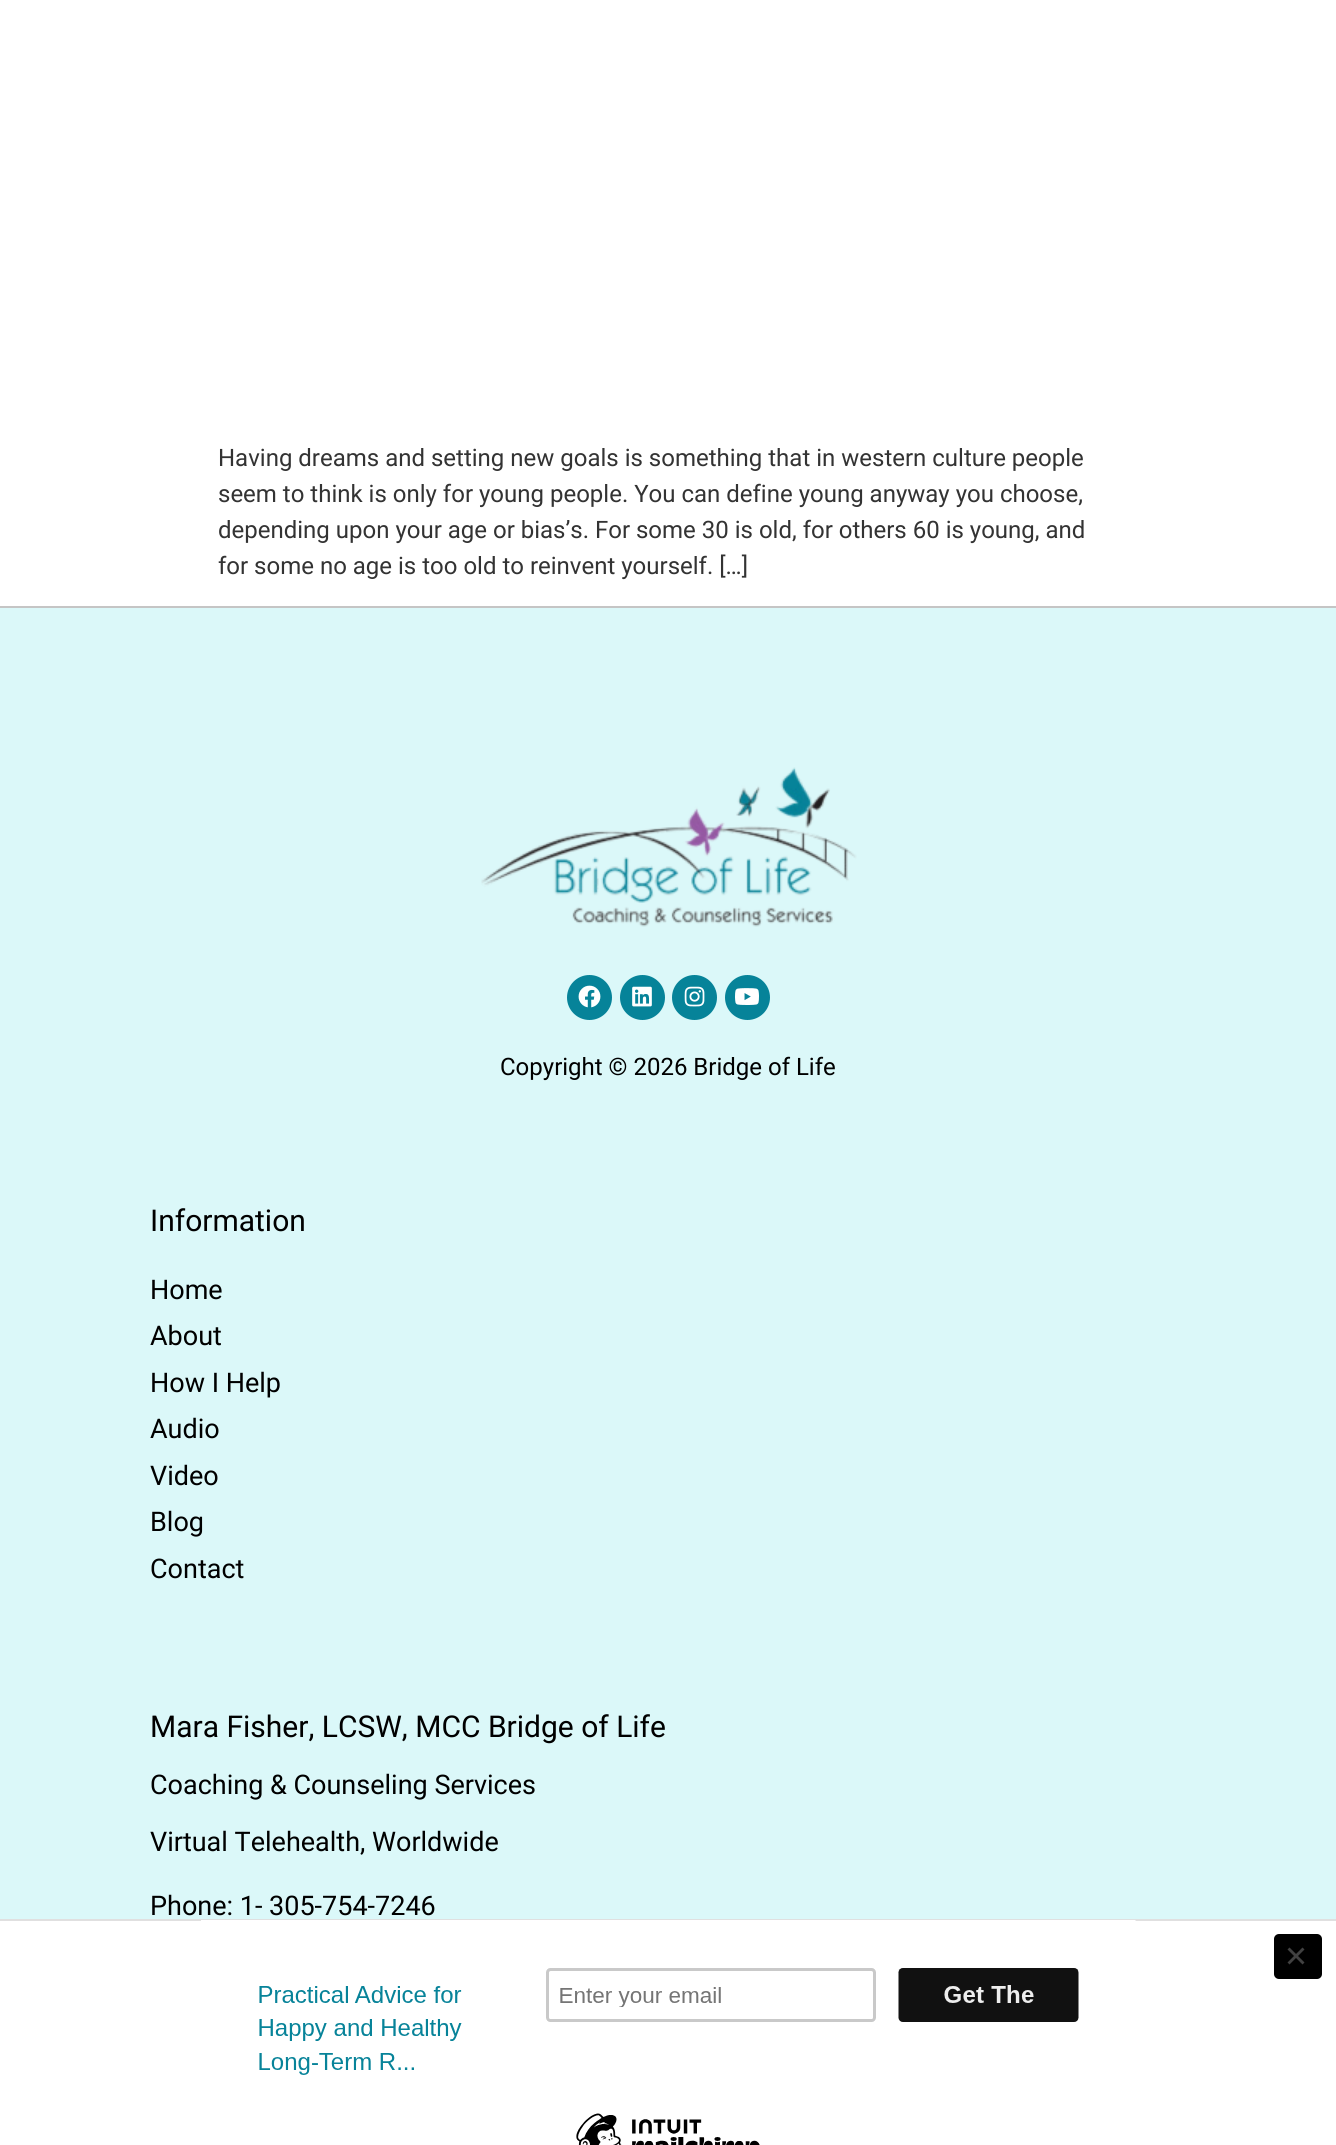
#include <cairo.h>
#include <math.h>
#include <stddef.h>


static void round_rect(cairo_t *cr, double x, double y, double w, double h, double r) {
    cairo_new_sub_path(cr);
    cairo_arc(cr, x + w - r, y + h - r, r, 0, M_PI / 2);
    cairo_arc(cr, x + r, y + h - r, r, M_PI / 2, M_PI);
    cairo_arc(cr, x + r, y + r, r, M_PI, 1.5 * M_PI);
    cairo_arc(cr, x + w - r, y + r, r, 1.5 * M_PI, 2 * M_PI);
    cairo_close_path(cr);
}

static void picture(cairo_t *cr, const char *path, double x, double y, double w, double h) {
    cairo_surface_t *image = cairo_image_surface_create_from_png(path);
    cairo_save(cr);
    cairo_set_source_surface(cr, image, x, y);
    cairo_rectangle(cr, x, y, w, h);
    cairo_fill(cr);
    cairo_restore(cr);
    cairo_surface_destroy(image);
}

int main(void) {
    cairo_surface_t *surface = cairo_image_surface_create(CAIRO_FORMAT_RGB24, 1336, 2145);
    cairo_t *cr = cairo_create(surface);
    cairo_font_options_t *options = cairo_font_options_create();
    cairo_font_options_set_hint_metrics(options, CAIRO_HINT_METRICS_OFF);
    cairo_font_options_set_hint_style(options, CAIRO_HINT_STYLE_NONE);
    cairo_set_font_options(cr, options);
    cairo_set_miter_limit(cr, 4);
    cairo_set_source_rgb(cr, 1, 1, 1);
    cairo_paint(cr);
    cairo_select_font_face(cr, "Roboto", CAIRO_FONT_SLANT_NORMAL, CAIRO_FONT_WEIGHT_NORMAL);
    cairo_set_font_size(cr, 24);
    cairo_set_source_rgb(cr, 0.2, 0.2, 0.2);
    cairo_move_to(cr, 218, 466);
    cairo_show_text(cr, "Having dreams and setting new goals is something that in western culture people");
    cairo_move_to(cr, 218, 502);
    cairo_show_text(cr, "seem to think is only for young people. You can define young anyway you choose,");
    cairo_move_to(cr, 218, 538);
    cairo_show_text(cr, "depending upon your age or bias’s. For some 30 is old, for others 60 is young, and");
    cairo_move_to(cr, 218, 574);
    cairo_show_text(cr, "for some no age is too old to reinvent yourself. […]");
    cairo_set_source_rgb(cr, 0.859, 0.969, 0.976);
    cairo_rectangle(cr, 0, 608, 1336, 1311);
    cairo_fill(cr);
    cairo_set_source_rgb(cr, 0.773, 0.773, 0.773);
    cairo_rectangle(cr, 0, 606, 1336, 2);
    cairo_fill(cr);
    picture(cr, "img1.png", 481, 767, 376, 160);
    cairo_set_source_rgb(cr, 0.027, 0.514, 0.6);
    cairo_arc(cr, 589.5, 997.5, 22.5, 0, 2 * M_PI);
    cairo_fill(cr);
    picture(cr, "img2.png", 578, 985, 23, 23);
    cairo_arc(cr, 642.5, 997.5, 22.5, 0, 2 * M_PI);
    cairo_fill(cr);
    picture(cr, "img3.png", 632, 986, 20, 21);
    cairo_arc(cr, 694.5, 997.5, 22.5, 0, 2 * M_PI);
    cairo_fill(cr);
    picture(cr, "img4.png", 684, 986, 21, 21);
    cairo_arc(cr, 747.5, 997.5, 22.5, 0, 2 * M_PI);
    cairo_fill(cr);
    picture(cr, "img5.png", 735, 988, 24, 17);
    cairo_set_source_rgb(cr, 0, 0, 0);
    cairo_move_to(cr, 500, 1075);
    cairo_show_text(cr, "Copyright © 2026 Bridge of Life");
    cairo_set_font_size(cr, 30);
    cairo_move_to(cr, 150, 1231);
    cairo_show_text(cr, "Information");
    cairo_set_font_size(cr, 27);
    cairo_move_to(cr, 150, 1299);
    cairo_show_text(cr, "Home");
    cairo_move_to(cr, 150, 1345);
    cairo_show_text(cr, "About");
    cairo_move_to(cr, 150, 1392);
    cairo_show_text(cr, "How I Help");
    cairo_move_to(cr, 150, 1438);
    cairo_show_text(cr, "Audio");
    cairo_move_to(cr, 150, 1485);
    cairo_show_text(cr, "Video");
    cairo_move_to(cr, 150, 1531);
    cairo_show_text(cr, "Blog");
    cairo_move_to(cr, 150, 1578);
    cairo_show_text(cr, "Contact");
    cairo_set_font_size(cr, 30);
    cairo_move_to(cr, 150, 1737);
    cairo_show_text(cr, "Mara Fisher, LCSW, MCC Bridge of Life");
    cairo_set_font_size(cr, 27);
    cairo_move_to(cr, 150, 1794);
    cairo_show_text(cr, "Coaching & Counseling Services");
    cairo_move_to(cr, 150, 1851);
    cairo_show_text(cr, "Virtual Telehealth, Worldwide");
    cairo_move_to(cr, 150, 1915);
    cairo_show_text(cr, "Phone: 1- 305-754-7246");
    cairo_set_source_rgb(cr, 0.878, 0.878, 0.878);
    cairo_rectangle(cr, 0, 1919, 1336, 2);
    cairo_fill(cr);
    picture(cr, "img6.png", 201, 1920, 935, 225);
    cairo_set_source_rgb(cr, 0, 0, 0);
    round_rect(cr, 1274, 1934, 48, 45, 5);
    cairo_fill(cr);
    cairo_set_source_rgb(cr, 0.255, 0.255, 0.255);
    cairo_new_path(cr);
    cairo_move_to(cr, 1302.5, 1947.5);
    cairo_line_to(cr, 1304.5, 1949.5);
    cairo_line_to(cr, 1289.5, 1964.5);
    cairo_line_to(cr, 1287.5, 1962.5);
    cairo_close_path(cr);
    cairo_fill(cr);
    cairo_new_path(cr);
    cairo_move_to(cr, 1287.5, 1949.5);
    cairo_line_to(cr, 1289.5, 1947.5);
    cairo_line_to(cr, 1304.5, 1962.5);
    cairo_line_to(cr, 1302.5, 1964.5);
    cairo_close_path(cr);
    cairo_fill(cr);
    cairo_surface_write_to_png(surface, "page.png");
    cairo_font_options_destroy(options);
    cairo_destroy(cr);
    cairo_surface_destroy(surface);
    return 0;
}
